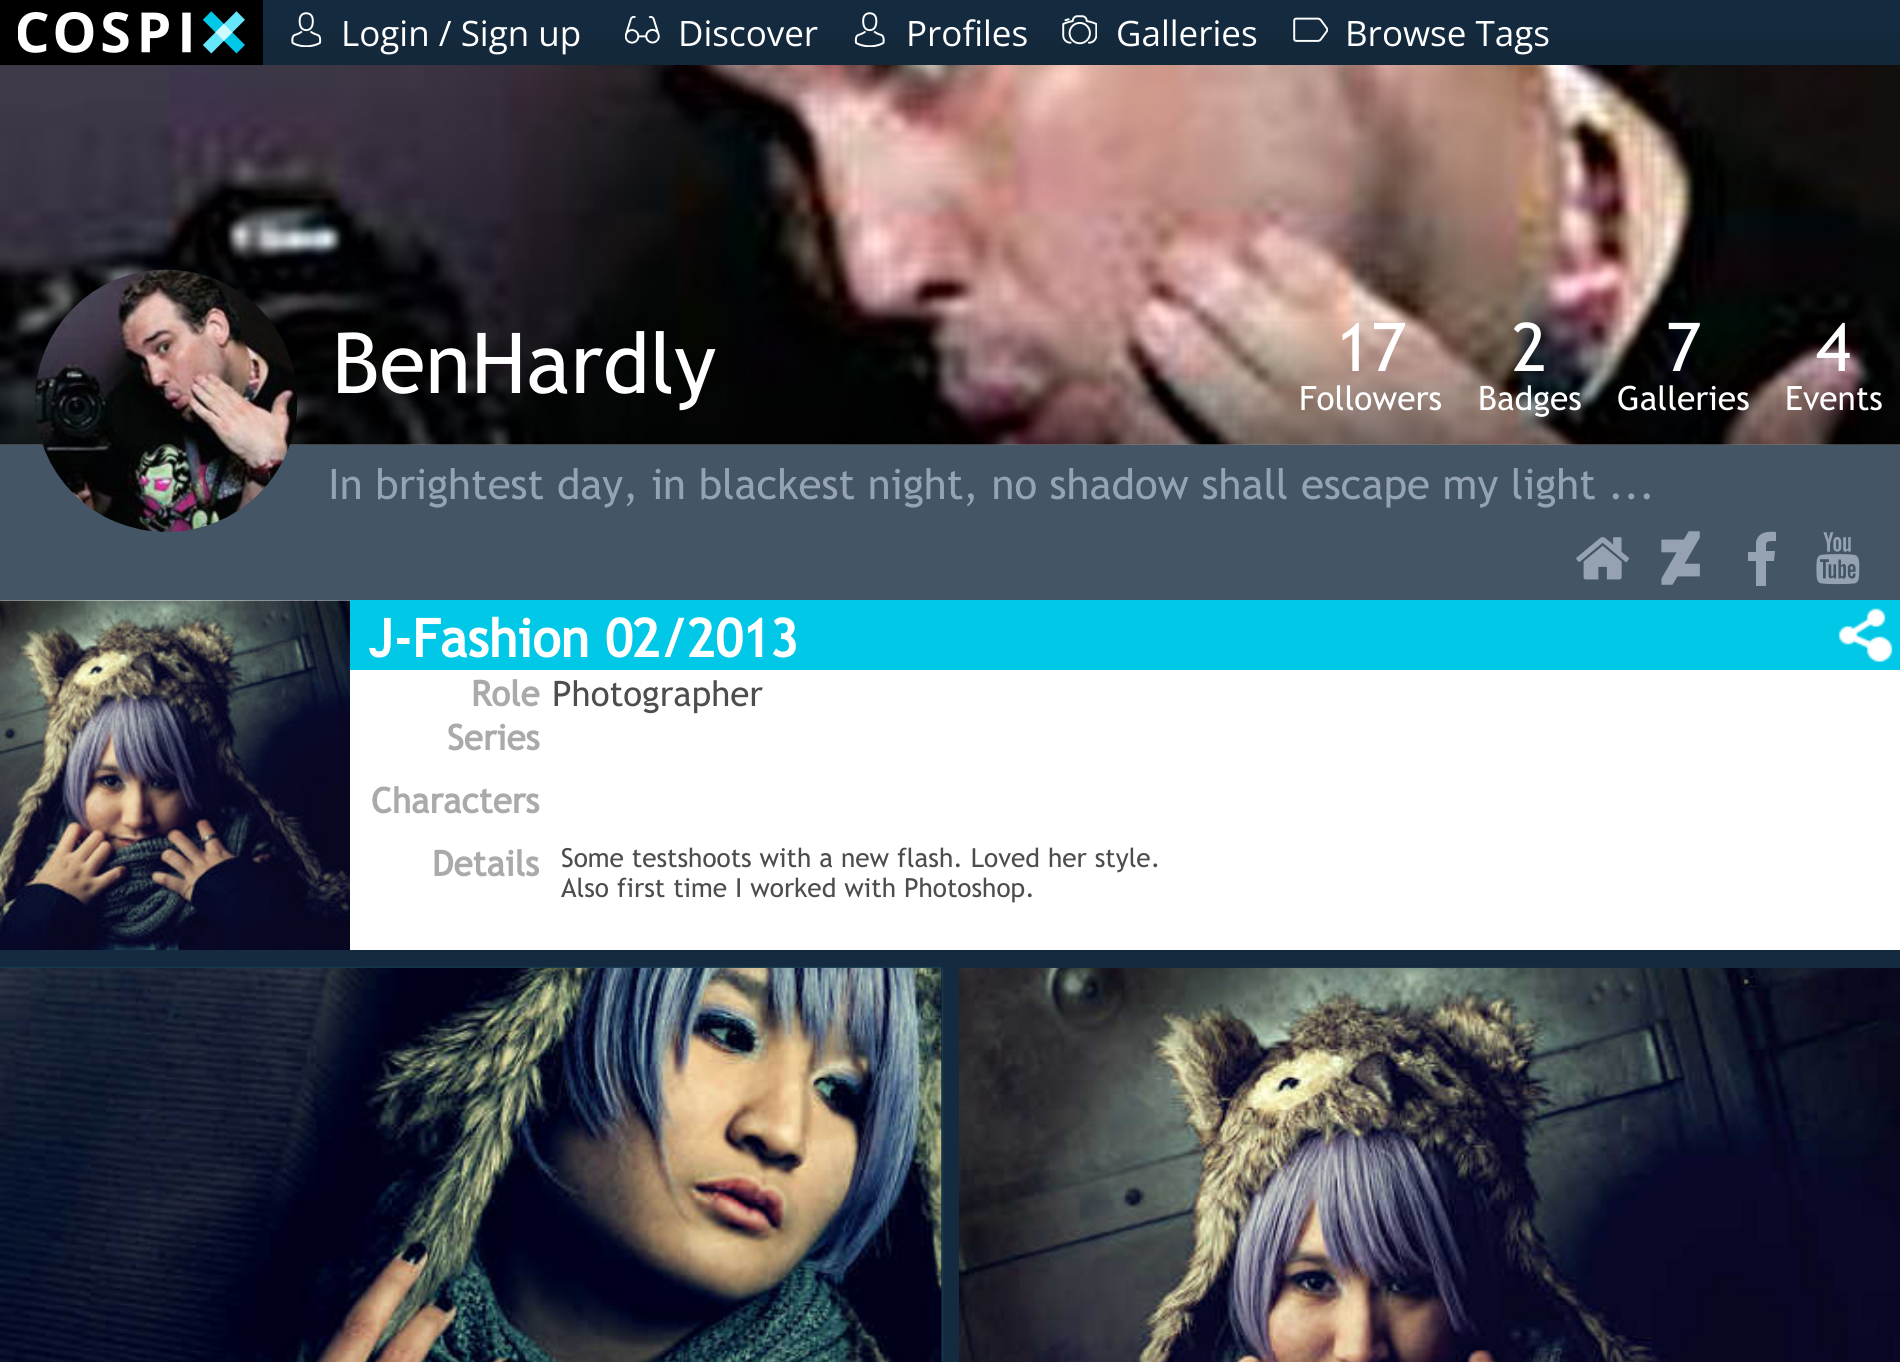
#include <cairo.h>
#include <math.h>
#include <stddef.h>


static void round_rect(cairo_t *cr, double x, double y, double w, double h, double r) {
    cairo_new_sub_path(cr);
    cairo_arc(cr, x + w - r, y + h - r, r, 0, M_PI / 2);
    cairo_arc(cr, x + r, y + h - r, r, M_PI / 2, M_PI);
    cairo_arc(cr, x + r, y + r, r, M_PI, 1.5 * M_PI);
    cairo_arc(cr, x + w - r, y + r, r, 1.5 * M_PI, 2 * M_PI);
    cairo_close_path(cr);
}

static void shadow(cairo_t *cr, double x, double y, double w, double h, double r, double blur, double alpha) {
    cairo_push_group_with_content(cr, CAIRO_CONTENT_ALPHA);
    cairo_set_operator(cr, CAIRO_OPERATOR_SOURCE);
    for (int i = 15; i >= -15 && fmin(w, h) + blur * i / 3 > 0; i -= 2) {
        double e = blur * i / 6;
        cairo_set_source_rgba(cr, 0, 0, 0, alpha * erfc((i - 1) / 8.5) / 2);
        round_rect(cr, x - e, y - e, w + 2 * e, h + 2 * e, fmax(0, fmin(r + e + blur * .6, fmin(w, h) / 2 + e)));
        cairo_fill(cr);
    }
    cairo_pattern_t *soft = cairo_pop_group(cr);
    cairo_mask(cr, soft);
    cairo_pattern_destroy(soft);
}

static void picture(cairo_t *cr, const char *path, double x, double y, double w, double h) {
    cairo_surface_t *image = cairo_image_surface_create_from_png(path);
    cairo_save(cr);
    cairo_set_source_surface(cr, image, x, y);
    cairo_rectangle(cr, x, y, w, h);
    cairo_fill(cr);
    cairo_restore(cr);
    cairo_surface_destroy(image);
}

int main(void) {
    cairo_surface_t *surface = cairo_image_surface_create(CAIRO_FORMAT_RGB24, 1900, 1362);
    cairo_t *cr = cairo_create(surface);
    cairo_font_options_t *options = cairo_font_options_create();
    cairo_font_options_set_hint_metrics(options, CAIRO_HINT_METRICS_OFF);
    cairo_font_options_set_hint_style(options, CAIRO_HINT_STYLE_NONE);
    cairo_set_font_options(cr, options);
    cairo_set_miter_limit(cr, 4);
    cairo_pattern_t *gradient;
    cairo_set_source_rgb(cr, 0.082, 0.169, 0.247);
    cairo_paint(cr);
    gradient = cairo_pattern_create_linear(950, 65, 950, 0);
    cairo_pattern_add_color_stop_rgba(gradient, 0, 0.075, 0.153, 0.227, 1);
    cairo_pattern_add_color_stop_rgba(gradient, 1, 0.082, 0.169, 0.247, 1);
    cairo_set_source(cr, gradient);
    cairo_pattern_destroy(gradient);
    cairo_rectangle(cr, 263, 33, 1637, 32);
    cairo_fill(cr);
    cairo_set_source_rgb(cr, 0, 0, 0);
    cairo_rectangle(cr, 0, 0, 263, 65);
    cairo_fill(cr);
    picture(cr, "img1.png", 18, 11, 227, 43);
    picture(cr, "img2.png", 291, 12, 31, 35);
    cairo_select_font_face(cr, "Open Sans", CAIRO_FONT_SLANT_NORMAL, CAIRO_FONT_WEIGHT_NORMAL);
    cairo_set_font_size(cr, 35);
    cairo_set_source_rgb(cr, 1, 1, 1);
    cairo_move_to(cr, 341, 46);
    cairo_show_text(cr, "Login / Sign up");
    picture(cr, "img3.png", 625, 15, 35, 29);
    cairo_move_to(cr, 678, 46);
    cairo_show_text(cr, "Discover");
    picture(cr, "img4.png", 854, 12, 31, 35);
    cairo_move_to(cr, 906, 46);
    cairo_show_text(cr, "Profiles");
    picture(cr, "img5.png", 1062, 15, 35, 30);
    cairo_move_to(cr, 1116, 46);
    cairo_show_text(cr, "Galleries");
    picture(cr, "img6.png", 1293, 17, 35, 25);
    cairo_move_to(cr, 1345, 46);
    cairo_show_text(cr, "Browse Tags");
    cairo_rectangle(cr, 0, 444, 1900, 1);
    cairo_fill(cr);
    picture(cr, "img7.png", 0, 65, 1900, 380);
    gradient = cairo_pattern_create_linear(950, 315, 950, 445);
    cairo_pattern_add_color_stop_rgba(gradient, 0, 0, 0, 0, 0);
    cairo_pattern_add_color_stop_rgba(gradient, 1, 0, 0, 0, 0.5);
    cairo_set_source(cr, gradient);
    cairo_pattern_destroy(gradient);
    cairo_rectangle(cr, 0, 321, 1900, 124);
    cairo_fill(cr);
    cairo_set_source_rgb(cr, 0.267, 0.333, 0.396);
    cairo_rectangle(cr, 0, 445, 1900, 155);
    cairo_fill(cr);
    picture(cr, "img8.png", 35, 269, 263, 263);
    cairo_select_font_face(cr, "Trebuchet MS", CAIRO_FONT_SLANT_NORMAL, CAIRO_FONT_WEIGHT_NORMAL);
    cairo_set_font_size(cr, 84);
    cairo_set_source_rgb(cr, 1, 1, 1);
    cairo_move_to(cr, 332, 393);
    cairo_show_text(cr, "BenHardly");
    cairo_set_font_size(cr, 67);
    cairo_move_to(cr, 1336, 371);
    cairo_show_text(cr, "17");
    cairo_set_font_size(cr, 33.5);
    cairo_move_to(cr, 1299, 410);
    cairo_show_text(cr, "Followers");
    cairo_set_font_size(cr, 67);
    cairo_move_to(cr, 1512, 371);
    cairo_show_text(cr, "2");
    cairo_set_font_size(cr, 33.5);
    cairo_move_to(cr, 1478, 410);
    cairo_show_text(cr, "Badges");
    cairo_set_font_size(cr, 67);
    cairo_move_to(cr, 1666, 371);
    cairo_show_text(cr, "7");
    cairo_set_font_size(cr, 33.5);
    cairo_move_to(cr, 1617, 410);
    cairo_show_text(cr, "Galleries");
    cairo_set_font_size(cr, 67);
    cairo_move_to(cr, 1816, 371);
    cairo_show_text(cr, "4");
    cairo_set_font_size(cr, 33.5);
    cairo_move_to(cr, 1785, 410);
    cairo_show_text(cr, "Events");
    cairo_set_font_size(cr, 42);
    cairo_set_source_rgb(cr, 0.584, 0.639, 0.698);
    cairo_move_to(cr, 328, 499);
    cairo_show_text(cr, "In brightest day, in blackest night, no shadow shall escape my light ...");
    picture(cr, "img9.png", 1576, 537, 53, 43);
    picture(cr, "img10.png", 1661, 531, 39, 54);
    cairo_new_path(cr);
    cairo_move_to(cr, 1774, 561);
    cairo_line_to(cr, 1775, 551);
    cairo_line_to(cr, 1766, 551);
    cairo_curve_to(cr, 1766, 541, 1765, 541, 1776, 541);
    cairo_line_to(cr, 1776, 532);
    cairo_curve_to(cr, 1768, 531, 1758, 532, 1756, 542);
    cairo_line_to(cr, 1756, 552);
    cairo_line_to(cr, 1748, 552);
    cairo_line_to(cr, 1748, 561);
    cairo_line_to(cr, 1756, 561);
    cairo_line_to(cr, 1756, 586);
    cairo_line_to(cr, 1766, 586);
    cairo_line_to(cr, 1766, 561);
    cairo_close_path(cr);
    cairo_fill(cr);
    picture(cr, "img11.png", 1816, 532, 44, 53);
    cairo_set_source_rgb(cr, 1, 1, 1);
    cairo_rectangle(cr, 350, 670, 1550, 280);
    cairo_fill(cr);
    cairo_rectangle(cr, 0, 600, 350, 1);
    cairo_fill(cr);
    picture(cr, "img12.png", 0, 600, 350, 350);
    cairo_set_source_rgb(cr, 0, 0.784, 0.902);
    cairo_rectangle(cr, 350, 600, 1550, 70);
    cairo_fill(cr);
    cairo_select_font_face(cr, "Trebuchet MS", CAIRO_FONT_SLANT_NORMAL, CAIRO_FONT_WEIGHT_BOLD);
    cairo_set_font_size(cr, 52.5);
    cairo_set_source_rgb(cr, 1, 1, 1);
    cairo_move_to(cr, 368, 657);
    cairo_show_text(cr, "J-Fashion 02/2013");
    picture(cr, "img13.png", 1838, 608, 55, 54);
    cairo_set_font_size(cr, 35);
    cairo_set_source_rgb(cr, 0.667, 0.667, 0.667);
    cairo_move_to(cr, 471, 706);
    cairo_show_text(cr, "Role");
    cairo_select_font_face(cr, "Trebuchet MS", CAIRO_FONT_SLANT_NORMAL, CAIRO_FONT_WEIGHT_NORMAL);
    cairo_set_source_rgb(cr, 0.302, 0.306, 0.298);
    cairo_move_to(cr, 552, 706);
    cairo_show_text(cr, "Photographer");
    cairo_select_font_face(cr, "Trebuchet MS", CAIRO_FONT_SLANT_NORMAL, CAIRO_FONT_WEIGHT_BOLD);
    cairo_set_source_rgb(cr, 0.667, 0.667, 0.667);
    cairo_move_to(cr, 447, 750);
    cairo_show_text(cr, "Series");
    cairo_move_to(cr, 371, 813);
    cairo_show_text(cr, "Characters");
    cairo_move_to(cr, 432, 876);
    cairo_show_text(cr, "Details");
    cairo_select_font_face(cr, "Trebuchet MS", CAIRO_FONT_SLANT_NORMAL, CAIRO_FONT_WEIGHT_NORMAL);
    cairo_set_font_size(cr, 26.25);
    cairo_set_source_rgb(cr, 0.302, 0.306, 0.298);
    cairo_move_to(cr, 561, 867);
    cairo_show_text(cr, "Some testshoots with a new flash. Loved her style.");
    cairo_move_to(cr, 561, 897);
    cairo_show_text(cr, "Also first time I worked with Photoshop.");
    cairo_set_source_rgb(cr, 0.094, 0.137, 0.216);
    cairo_rectangle(cr, 941, 968, 1, 394);
    cairo_fill(cr);
    cairo_save(cr);
    cairo_set_fill_rule(cr, CAIRO_FILL_RULE_EVEN_ODD);
    cairo_new_path(cr);
    cairo_move_to(cr, 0, 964);
    cairo_line_to(cr, 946, 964);
    cairo_line_to(cr, 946, 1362);
    cairo_line_to(cr, 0, 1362);
    cairo_close_path(cr);
    cairo_move_to(cr, 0, 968);
    cairo_line_to(cr, 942, 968);
    cairo_line_to(cr, 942, 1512);
    cairo_line_to(cr, 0, 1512);
    cairo_close_path(cr);
    cairo_clip(cr);
    cairo_set_source_rgb(cr, 0, 0.784, 0.902);
    shadow(cr, 0, 968, 942, 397, 0, 1, 0.3);
    cairo_restore(cr);
    picture(cr, "img14.png", 0, 967, 942, 395);
    picture(cr, "img15.png", 959, 967, 941, 395);
    cairo_surface_write_to_png(surface, "page.png");
    cairo_font_options_destroy(options);
    cairo_destroy(cr);
    cairo_surface_destroy(surface);
    return 0;
}
